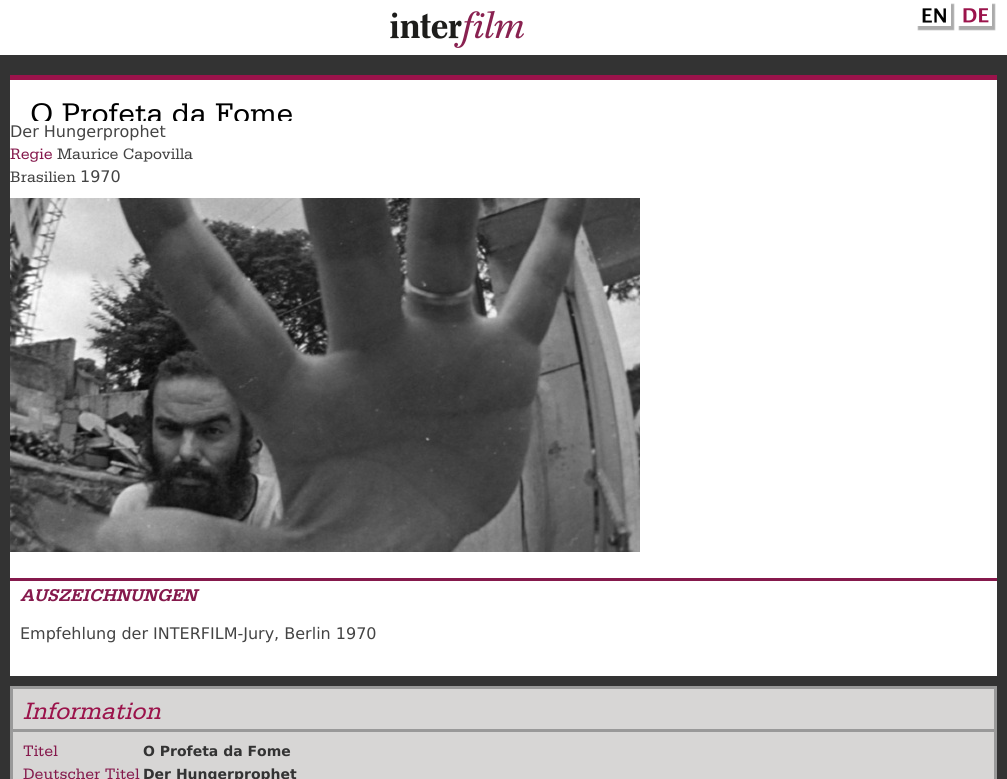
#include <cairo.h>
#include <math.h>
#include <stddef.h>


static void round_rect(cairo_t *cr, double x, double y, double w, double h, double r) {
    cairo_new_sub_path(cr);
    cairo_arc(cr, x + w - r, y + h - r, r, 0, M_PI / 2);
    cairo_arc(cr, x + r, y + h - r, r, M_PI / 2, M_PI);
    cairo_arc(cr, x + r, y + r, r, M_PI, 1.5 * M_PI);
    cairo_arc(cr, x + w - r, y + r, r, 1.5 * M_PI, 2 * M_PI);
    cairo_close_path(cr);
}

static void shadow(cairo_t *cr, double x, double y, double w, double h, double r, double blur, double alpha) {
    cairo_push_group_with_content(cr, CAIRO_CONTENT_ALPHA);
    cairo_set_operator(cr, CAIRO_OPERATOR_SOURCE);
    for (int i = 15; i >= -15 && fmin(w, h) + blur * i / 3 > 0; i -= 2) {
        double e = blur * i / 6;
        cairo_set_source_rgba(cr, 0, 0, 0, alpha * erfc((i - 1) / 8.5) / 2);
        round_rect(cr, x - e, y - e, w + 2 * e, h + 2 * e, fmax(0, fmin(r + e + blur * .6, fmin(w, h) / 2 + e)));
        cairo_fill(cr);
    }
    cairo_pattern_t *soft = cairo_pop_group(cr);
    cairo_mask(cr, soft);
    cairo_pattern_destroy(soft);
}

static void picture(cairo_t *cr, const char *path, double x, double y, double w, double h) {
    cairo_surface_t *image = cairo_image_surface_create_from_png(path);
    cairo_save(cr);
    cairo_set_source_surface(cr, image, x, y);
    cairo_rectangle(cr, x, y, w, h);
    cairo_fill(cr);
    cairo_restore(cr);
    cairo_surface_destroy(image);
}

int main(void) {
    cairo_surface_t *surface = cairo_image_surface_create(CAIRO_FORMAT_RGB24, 1007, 779);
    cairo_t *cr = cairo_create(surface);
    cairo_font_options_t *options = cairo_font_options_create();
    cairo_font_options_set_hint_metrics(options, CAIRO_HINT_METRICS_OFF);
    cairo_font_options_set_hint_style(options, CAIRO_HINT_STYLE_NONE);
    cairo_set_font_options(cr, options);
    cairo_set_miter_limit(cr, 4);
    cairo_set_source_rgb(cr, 0.2, 0.2, 0.2);
    cairo_paint(cr);
    cairo_set_source_rgb(cr, 1, 1, 1);
    cairo_rectangle(cr, 0, 0, 1007, 55);
    cairo_fill(cr);
    picture(cr, "img1.png", 390, 10, 134, 38);
    cairo_save(cr);
    cairo_set_fill_rule(cr, CAIRO_FILL_RULE_EVEN_ODD);
    cairo_new_path(cr);
    cairo_move_to(cr, 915, 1);
    cairo_line_to(cr, 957, 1);
    cairo_line_to(cr, 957, 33);
    cairo_line_to(cr, 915, 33);
    cairo_close_path(cr);
    cairo_move_to(cr, 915, 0);
    cairo_line_to(cr, 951, 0);
    cairo_line_to(cr, 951, 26);
    cairo_line_to(cr, 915, 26);
    cairo_close_path(cr);
    cairo_clip(cr);
    cairo_set_source_rgb(cr, 0.671, 0.671, 0.671);
    shadow(cr, 918, 4, 36, 26, 0, 0.5, 1);
    cairo_restore(cr);
    picture(cr, "img2.png", 922, 8, 24, 15);
    cairo_save(cr);
    cairo_set_fill_rule(cr, CAIRO_FILL_RULE_EVEN_ODD);
    cairo_new_path(cr);
    cairo_move_to(cr, 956, 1);
    cairo_line_to(cr, 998, 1);
    cairo_line_to(cr, 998, 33);
    cairo_line_to(cr, 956, 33);
    cairo_close_path(cr);
    cairo_move_to(cr, 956, 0);
    cairo_line_to(cr, 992, 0);
    cairo_line_to(cr, 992, 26);
    cairo_line_to(cr, 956, 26);
    cairo_close_path(cr);
    cairo_clip(cr);
    cairo_set_source_rgb(cr, 0.671, 0.671, 0.671);
    shadow(cr, 959, 4, 36, 26, 0, 0.5, 1);
    cairo_restore(cr);
    picture(cr, "img3.png", 963, 8, 26, 15);
    cairo_rectangle(cr, 10, 80, 987, 41);
    cairo_fill(cr);
    cairo_set_source_rgb(cr, 0.608, 0.075, 0.294);
    cairo_rectangle(cr, 10, 75, 987, 5);
    cairo_fill(cr);
    cairo_select_font_face(cr, "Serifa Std", CAIRO_FONT_SLANT_NORMAL, CAIRO_FONT_WEIGHT_NORMAL);
    cairo_set_font_size(cr, 30);
    cairo_set_source_rgb(cr, 0, 0, 0);
    cairo_move_to(cr, 30, 123);
    cairo_show_text(cr, "O Profeta da Fome");
    cairo_set_source_rgb(cr, 1, 1, 1);
    cairo_rectangle(cr, 10, 121, 987, 555);
    cairo_fill(cr);
    cairo_select_font_face(cr, "DejaVu Sans", CAIRO_FONT_SLANT_NORMAL, CAIRO_FONT_WEIGHT_NORMAL);
    cairo_set_font_size(cr, 16);
    cairo_set_source_rgb(cr, 0.267, 0.267, 0.267);
    cairo_move_to(cr, 10, 137);
    cairo_show_text(cr, "Der Hungerprophet");
    cairo_select_font_face(cr, "Serifa Std", CAIRO_FONT_SLANT_NORMAL, CAIRO_FONT_WEIGHT_NORMAL);
    cairo_set_source_rgb(cr, 0.522, 0.098, 0.298);
    cairo_move_to(cr, 10, 159);
    cairo_show_text(cr, "Regie");
    cairo_set_source_rgb(cr, 0.267, 0.267, 0.267);
    cairo_move_to(cr, 57, 159);
    cairo_show_text(cr, "Maurice Capovilla");
    cairo_move_to(cr, 10, 182);
    cairo_show_text(cr, "Brasilien");
    cairo_select_font_face(cr, "DejaVu Sans", CAIRO_FONT_SLANT_NORMAL, CAIRO_FONT_WEIGHT_NORMAL);
    cairo_move_to(cr, 80, 182);
    cairo_show_text(cr, "1970");
    picture(cr, "img4.png", 10, 198, 630, 354);
    cairo_set_source_rgb(cr, 0.522, 0.098, 0.298);
    cairo_rectangle(cr, 10, 578, 987, 3);
    cairo_fill(cr);
    cairo_select_font_face(cr, "Serifa Std", CAIRO_FONT_SLANT_ITALIC, CAIRO_FONT_WEIGHT_BOLD);
    cairo_set_font_size(cr, 18);
    cairo_move_to(cr, 20, 601);
    cairo_show_text(cr, "AUSZEICHNUNGEN");
    cairo_select_font_face(cr, "DejaVu Sans", CAIRO_FONT_SLANT_NORMAL, CAIRO_FONT_WEIGHT_NORMAL);
    cairo_set_font_size(cr, 16);
    cairo_set_source_rgb(cr, 0.267, 0.267, 0.267);
    cairo_move_to(cr, 20, 639);
    cairo_show_text(cr, "Empfehlung der INTERFILM-Jury, Berlin 1970");
    cairo_set_source_rgb(cr, 0.843, 0.839, 0.835);
    cairo_rectangle(cr, 11.5, 687.5, 984, 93);
    cairo_fill_preserve(cr);
    cairo_set_source_rgb(cr, 0.6, 0.6, 0.6);
    cairo_set_line_width(cr, 3);
    cairo_stroke(cr);
    cairo_rectangle(cr, 13, 729, 981, 3);
    cairo_fill(cr);
    cairo_select_font_face(cr, "Serifa Std", CAIRO_FONT_SLANT_ITALIC, CAIRO_FONT_WEIGHT_NORMAL);
    cairo_set_font_size(cr, 25);
    cairo_set_source_rgb(cr, 0.608, 0.075, 0.294);
    cairo_move_to(cr, 23, 719);
    cairo_show_text(cr, "Information");
    cairo_select_font_face(cr, "Serifa Std", CAIRO_FONT_SLANT_NORMAL, CAIRO_FONT_WEIGHT_NORMAL);
    cairo_set_font_size(cr, 16);
    cairo_set_source_rgb(cr, 0.522, 0.098, 0.298);
    cairo_move_to(cr, 23, 756);
    cairo_show_text(cr, "Titel");
    cairo_select_font_face(cr, "DejaVu Sans", CAIRO_FONT_SLANT_NORMAL, CAIRO_FONT_WEIGHT_BOLD);
    cairo_set_font_size(cr, 14);
    cairo_set_source_rgb(cr, 0.2, 0.2, 0.2);
    cairo_move_to(cr, 143, 756);
    cairo_show_text(cr, "O Profeta da Fome");
    cairo_select_font_face(cr, "Serifa Std", CAIRO_FONT_SLANT_NORMAL, CAIRO_FONT_WEIGHT_NORMAL);
    cairo_set_font_size(cr, 16);
    cairo_set_source_rgb(cr, 0.522, 0.098, 0.298);
    cairo_move_to(cr, 23, 779);
    cairo_show_text(cr, "Deutscher Titel");
    cairo_select_font_face(cr, "DejaVu Sans", CAIRO_FONT_SLANT_NORMAL, CAIRO_FONT_WEIGHT_BOLD);
    cairo_set_font_size(cr, 14);
    cairo_set_source_rgb(cr, 0.2, 0.2, 0.2);
    cairo_move_to(cr, 143, 779);
    cairo_show_text(cr, "Der Hungerprophet");
    cairo_surface_write_to_png(surface, "page.png");
    cairo_font_options_destroy(options);
    cairo_destroy(cr);
    cairo_surface_destroy(surface);
    return 0;
}
